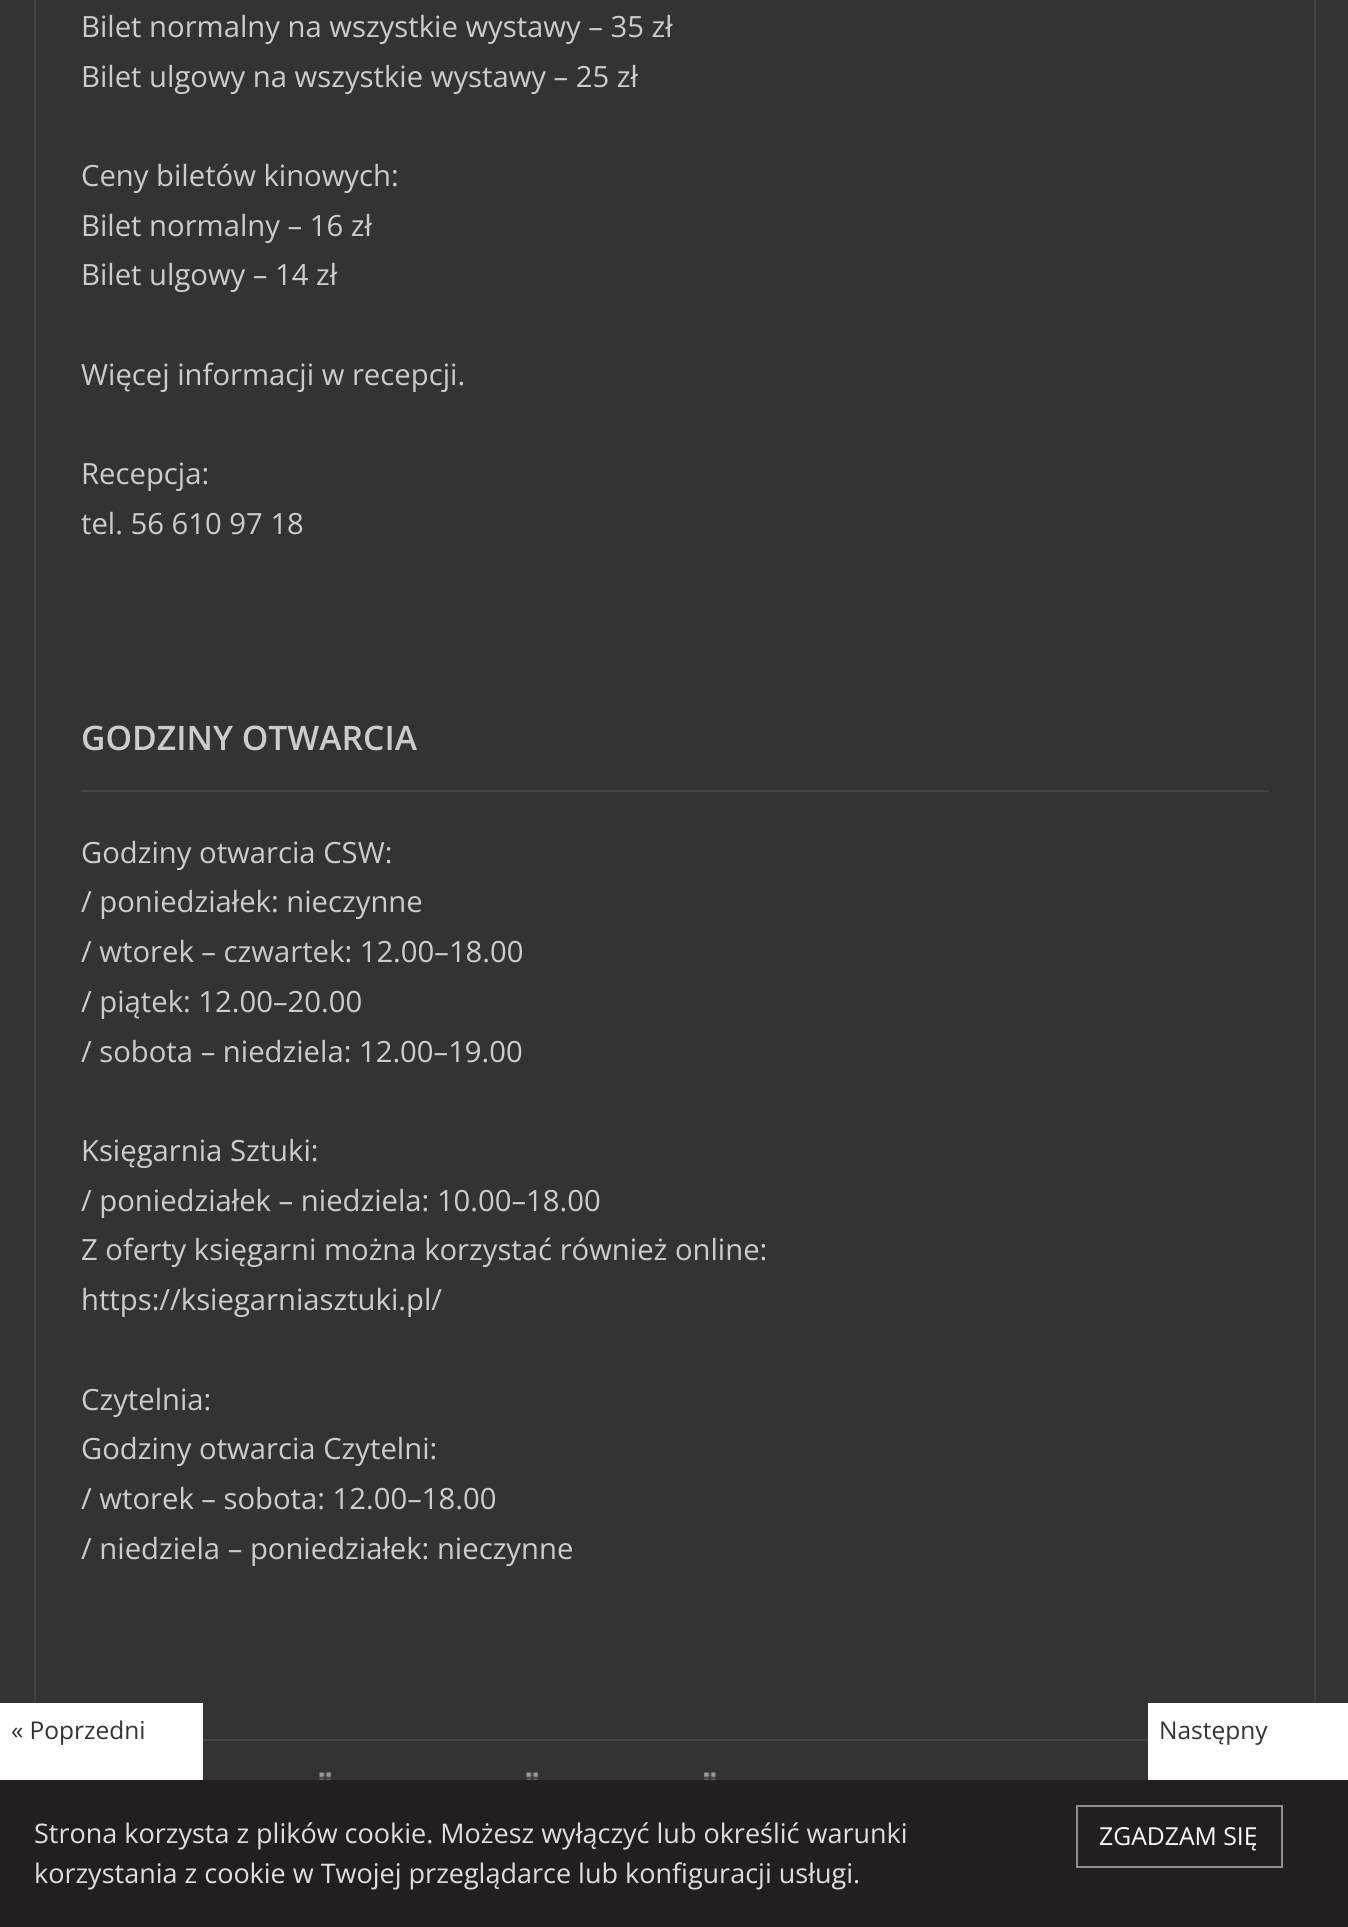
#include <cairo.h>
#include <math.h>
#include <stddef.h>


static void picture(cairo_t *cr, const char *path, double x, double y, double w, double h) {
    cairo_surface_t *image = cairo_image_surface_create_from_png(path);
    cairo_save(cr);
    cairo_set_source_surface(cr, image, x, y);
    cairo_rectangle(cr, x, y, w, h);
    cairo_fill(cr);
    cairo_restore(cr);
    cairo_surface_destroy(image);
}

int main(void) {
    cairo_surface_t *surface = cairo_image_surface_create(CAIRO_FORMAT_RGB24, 1348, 1927);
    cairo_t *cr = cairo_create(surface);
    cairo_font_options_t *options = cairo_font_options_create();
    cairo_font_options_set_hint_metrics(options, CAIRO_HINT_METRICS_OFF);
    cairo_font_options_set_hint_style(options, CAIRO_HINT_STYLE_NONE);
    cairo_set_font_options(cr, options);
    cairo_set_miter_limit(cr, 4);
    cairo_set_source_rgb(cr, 0.2, 0.2, 0.2);
    cairo_paint(cr);
    cairo_set_source_rgb(cr, 0.267, 0.267, 0.267);
    cairo_rectangle(cr, 1314, 0, 2, 1703);
    cairo_fill(cr);
    cairo_rectangle(cr, 34, 0, 2, 1703);
    cairo_fill(cr);
    cairo_select_font_face(cr, "Open Sans", CAIRO_FONT_SLANT_NORMAL, CAIRO_FONT_WEIGHT_NORMAL);
    cairo_set_font_size(cr, 29.25);
    cairo_set_source_rgb(cr, 0.8, 0.8, 0.8);
    cairo_move_to(cr, 81, 37);
    cairo_show_text(cr, "Bilet normalny na wszystkie wystawy – 35 zł");
    cairo_move_to(cr, 81, 87);
    cairo_show_text(cr, "Bilet ulgowy na wszystkie wystawy – 25 zł");
    cairo_move_to(cr, 81, 186);
    cairo_show_text(cr, "Ceny biletów kinowych:");
    cairo_move_to(cr, 81, 236);
    cairo_show_text(cr, "Bilet normalny – 16 zł");
    cairo_move_to(cr, 81, 285);
    cairo_show_text(cr, "Bilet ulgowy – 14 zł");
    cairo_move_to(cr, 81, 385);
    cairo_show_text(cr, "Więcej informacji w recepcji.");
    cairo_move_to(cr, 81, 484);
    cairo_show_text(cr, "Recepcja:");
    cairo_move_to(cr, 81, 534);
    cairo_show_text(cr, "tel. 56 610 97 18");
    cairo_set_source_rgb(cr, 0.267, 0.267, 0.267);
    cairo_rectangle(cr, 81, 790, 1188, 2);
    cairo_fill(cr);
    cairo_select_font_face(cr, "Open Sans SemiBold", CAIRO_FONT_SLANT_NORMAL, CAIRO_FONT_WEIGHT_NORMAL);
    cairo_set_font_size(cr, 33.75);
    cairo_set_source_rgb(cr, 0.8, 0.8, 0.8);
    cairo_move_to(cr, 81, 750);
    cairo_show_text(cr, "GODZINY OTWARCIA");
    cairo_select_font_face(cr, "Open Sans", CAIRO_FONT_SLANT_NORMAL, CAIRO_FONT_WEIGHT_NORMAL);
    cairo_set_font_size(cr, 29.25);
    cairo_move_to(cr, 81, 863);
    cairo_show_text(cr, "Godziny otwarcia CSW:");
    cairo_move_to(cr, 81, 912);
    cairo_show_text(cr, "/ poniedziałek: nieczynne");
    cairo_move_to(cr, 81, 962);
    cairo_show_text(cr, "/ wtorek – czwartek: 12.00–18.00");
    cairo_move_to(cr, 81, 1012);
    cairo_show_text(cr, "/ piątek: 12.00–20.00");
    cairo_move_to(cr, 81, 1062);
    cairo_show_text(cr, "/ sobota – niedziela: 12.00–19.00");
    cairo_move_to(cr, 81, 1161);
    cairo_show_text(cr, "Księgarnia Sztuki:");
    cairo_move_to(cr, 81, 1211);
    cairo_show_text(cr, "/ poniedziałek – niedziela: 10.00–18.00");
    cairo_move_to(cr, 81, 1260);
    cairo_show_text(cr, "Z oferty księgarni można korzystać również online:");
    cairo_move_to(cr, 81, 1310);
    cairo_show_text(cr, "https://ksiegarniasztuki.pl/");
    cairo_move_to(cr, 81, 1410);
    cairo_show_text(cr, "Czytelnia:");
    cairo_move_to(cr, 81, 1459);
    cairo_show_text(cr, "Godziny otwarcia Czytelni:");
    cairo_move_to(cr, 81, 1509);
    cairo_show_text(cr, "/ wtorek – sobota: 12.00–18.00");
    cairo_move_to(cr, 81, 1559);
    cairo_show_text(cr, "/ niedziela – poniedziałek: nieczynne");
    cairo_set_source_rgb(cr, 0.267, 0.267, 0.267);
    cairo_rectangle(cr, 203, 1739, 945, 2);
    cairo_fill(cr);
    picture(cr, "img1.png", 319, 1772, 12, 8);
    picture(cr, "img1.png", 526, 1772, 12, 8);
    picture(cr, "img2.png", 704, 1772, 12, 8);
    cairo_set_source_rgb(cr, 1, 1, 1);
    cairo_rectangle(cr, 0, 1703, 203, 77);
    cairo_fill(cr);
    cairo_set_font_size(cr, 24.5);
    cairo_set_source_rgb(cr, 0.2, 0.2, 0.2);
    cairo_move_to(cr, 11, 1739);
    cairo_show_text(cr, "« Poprzedni");
    cairo_set_source_rgb(cr, 1, 1, 1);
    cairo_rectangle(cr, 1148, 1703, 200, 77);
    cairo_fill(cr);
    cairo_set_source_rgb(cr, 0.2, 0.2, 0.2);
    cairo_move_to(cr, 1159, 1739);
    cairo_show_text(cr, "Następny");
    cairo_set_source_rgb(cr, 0.137, 0.122, 0.125);
    cairo_rectangle(cr, 0, 1780, 1348, 147);
    cairo_fill(cr);
    cairo_set_font_size(cr, 27);
    cairo_set_source_rgb(cr, 0.882, 0.867, 0.871);
    cairo_move_to(cr, 34, 1843);
    cairo_show_text(cr, "Strona korzysta z plików cookie. Możesz wyłączyć lub określić warunki");
    cairo_rectangle(cr, 1077, 1806, 205, 61);
    cairo_set_source_rgb(cr, 0.573, 0.557, 0.561);
    cairo_stroke(cr);
    cairo_set_font_size(cr, 24.75);
    cairo_set_source_rgb(cr, 1, 1, 1);
    cairo_move_to(cr, 1099, 1845);
    cairo_show_text(cr, "ZGADZAM SIĘ");
    cairo_set_font_size(cr, 27);
    cairo_set_source_rgb(cr, 0.882, 0.867, 0.871);
    cairo_move_to(cr, 34, 1883);
    cairo_show_text(cr, "korzystania z cookie w Twojej przeglądarce lub konfiguracji usługi.");
    cairo_surface_write_to_png(surface, "page.png");
    cairo_font_options_destroy(options);
    cairo_destroy(cr);
    cairo_surface_destroy(surface);
    return 0;
}
